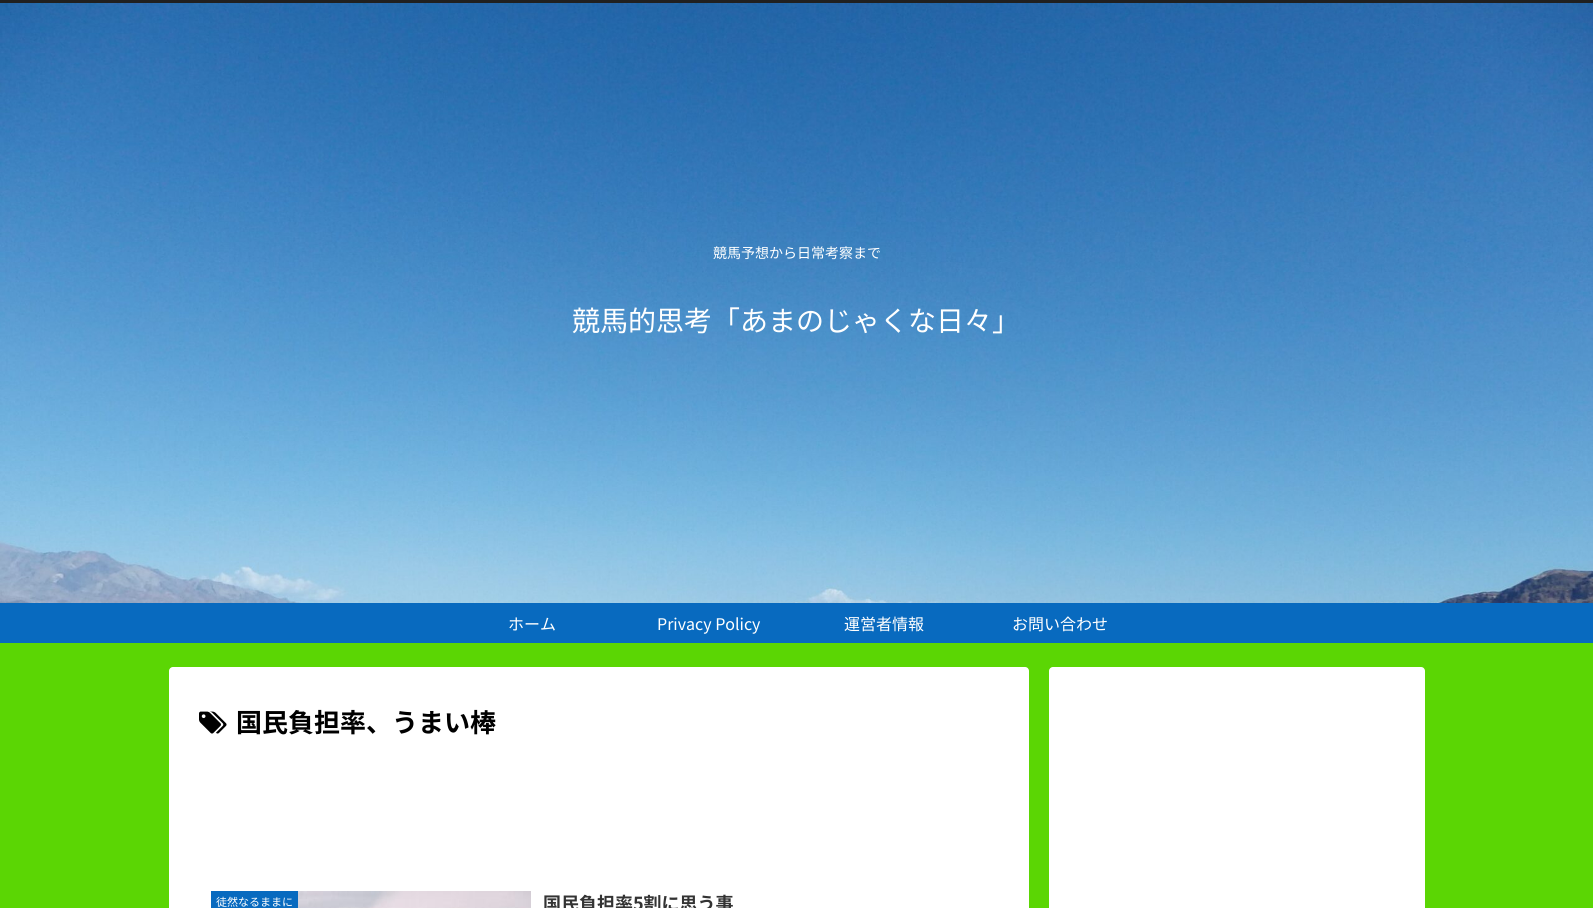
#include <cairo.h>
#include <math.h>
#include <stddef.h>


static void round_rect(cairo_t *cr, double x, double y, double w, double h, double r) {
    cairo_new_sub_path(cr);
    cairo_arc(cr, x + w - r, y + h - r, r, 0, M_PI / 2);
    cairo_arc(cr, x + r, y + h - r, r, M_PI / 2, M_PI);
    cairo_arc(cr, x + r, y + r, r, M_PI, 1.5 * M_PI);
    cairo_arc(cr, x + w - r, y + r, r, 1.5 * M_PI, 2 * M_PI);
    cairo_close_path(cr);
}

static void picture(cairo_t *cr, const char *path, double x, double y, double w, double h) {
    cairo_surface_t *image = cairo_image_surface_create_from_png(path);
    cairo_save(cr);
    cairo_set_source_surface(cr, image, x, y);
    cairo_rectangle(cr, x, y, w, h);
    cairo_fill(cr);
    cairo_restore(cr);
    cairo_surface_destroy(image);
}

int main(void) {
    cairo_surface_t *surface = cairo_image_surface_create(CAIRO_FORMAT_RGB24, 1593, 908);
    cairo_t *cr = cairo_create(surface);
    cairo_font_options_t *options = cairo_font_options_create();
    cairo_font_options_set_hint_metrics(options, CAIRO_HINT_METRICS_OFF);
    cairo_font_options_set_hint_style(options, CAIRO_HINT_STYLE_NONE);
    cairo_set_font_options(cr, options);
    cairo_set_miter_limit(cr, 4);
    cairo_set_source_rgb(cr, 0.357, 0.839, 0.016);
    cairo_paint(cr);
    cairo_set_source_rgb(cr, 0.035, 0.416, 0.749);
    cairo_rectangle(cr, 0, 603, 1593, 40);
    cairo_fill(cr);
    cairo_set_source_rgb(cr, 0.125, 0.125, 0.125);
    cairo_rectangle(cr, 0, 0, 1593, 3);
    cairo_fill(cr);
    picture(cr, "img1.png", 0, 3, 1593, 600);
    cairo_select_font_face(cr, "Noto Sans JP", CAIRO_FONT_SLANT_NORMAL, CAIRO_FONT_WEIGHT_NORMAL);
    cairo_set_font_size(cr, 14);
    cairo_set_source_rgb(cr, 1, 1, 1);
    cairo_move_to(cr, 713, 258);
    cairo_show_text(cr, "競馬予想から日常考察まで");
    cairo_set_font_size(cr, 28);
    cairo_move_to(cr, 572, 331);
    cairo_show_text(cr, "競馬的思考「あまのじゃくな日々」");
    cairo_set_font_size(cr, 16);
    cairo_move_to(cr, 508, 630);
    cairo_show_text(cr, "ホーム");
    cairo_move_to(cr, 657, 630);
    cairo_show_text(cr, "Privacy Policy");
    cairo_move_to(cr, 844, 630);
    cairo_show_text(cr, "運営者情報");
    cairo_move_to(cr, 1012, 630);
    cairo_show_text(cr, "お問い合わせ");
    round_rect(cr, 169, 667, 860, 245, 4);
    cairo_fill(cr);
    picture(cr, "img2.png", 199, 711, 28, 23);
    cairo_select_font_face(cr, "Noto Sans JP", CAIRO_FONT_SLANT_NORMAL, CAIRO_FONT_WEIGHT_BOLD);
    cairo_set_font_size(cr, 26);
    cairo_set_source_rgb(cr, 0, 0, 0);
    cairo_move_to(cr, 236, 732);
    cairo_show_text(cr, "国民負担率、うまい棒");
    cairo_set_source_rgb(cr, 0.035, 0.416, 0.749);
    cairo_rectangle(cr, 211, 891, 87, 17);
    cairo_fill(cr);
    cairo_select_font_face(cr, "Noto Sans JP", CAIRO_FONT_SLANT_NORMAL, CAIRO_FONT_WEIGHT_NORMAL);
    cairo_set_font_size(cr, 11);
    cairo_set_source_rgb(cr, 1, 1, 1);
    cairo_move_to(cr, 216, 906);
    cairo_show_text(cr, "徒然なるままに");
    picture(cr, "img3.png", 298, 891, 233, 17);
    cairo_select_font_face(cr, "Noto Sans JP", CAIRO_FONT_SLANT_NORMAL, CAIRO_FONT_WEIGHT_BOLD);
    cairo_set_font_size(cr, 18);
    cairo_set_source_rgb(cr, 0.2, 0.2, 0.2);
    cairo_move_to(cr, 543, 910);
    cairo_show_text(cr, "国民負担率5割に思う事");
    cairo_set_source_rgb(cr, 1, 1, 1);
    round_rect(cr, 1049, 667, 376, 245, 4);
    cairo_fill(cr);
    cairo_surface_write_to_png(surface, "page.png");
    cairo_font_options_destroy(options);
    cairo_destroy(cr);
    cairo_surface_destroy(surface);
    return 0;
}
